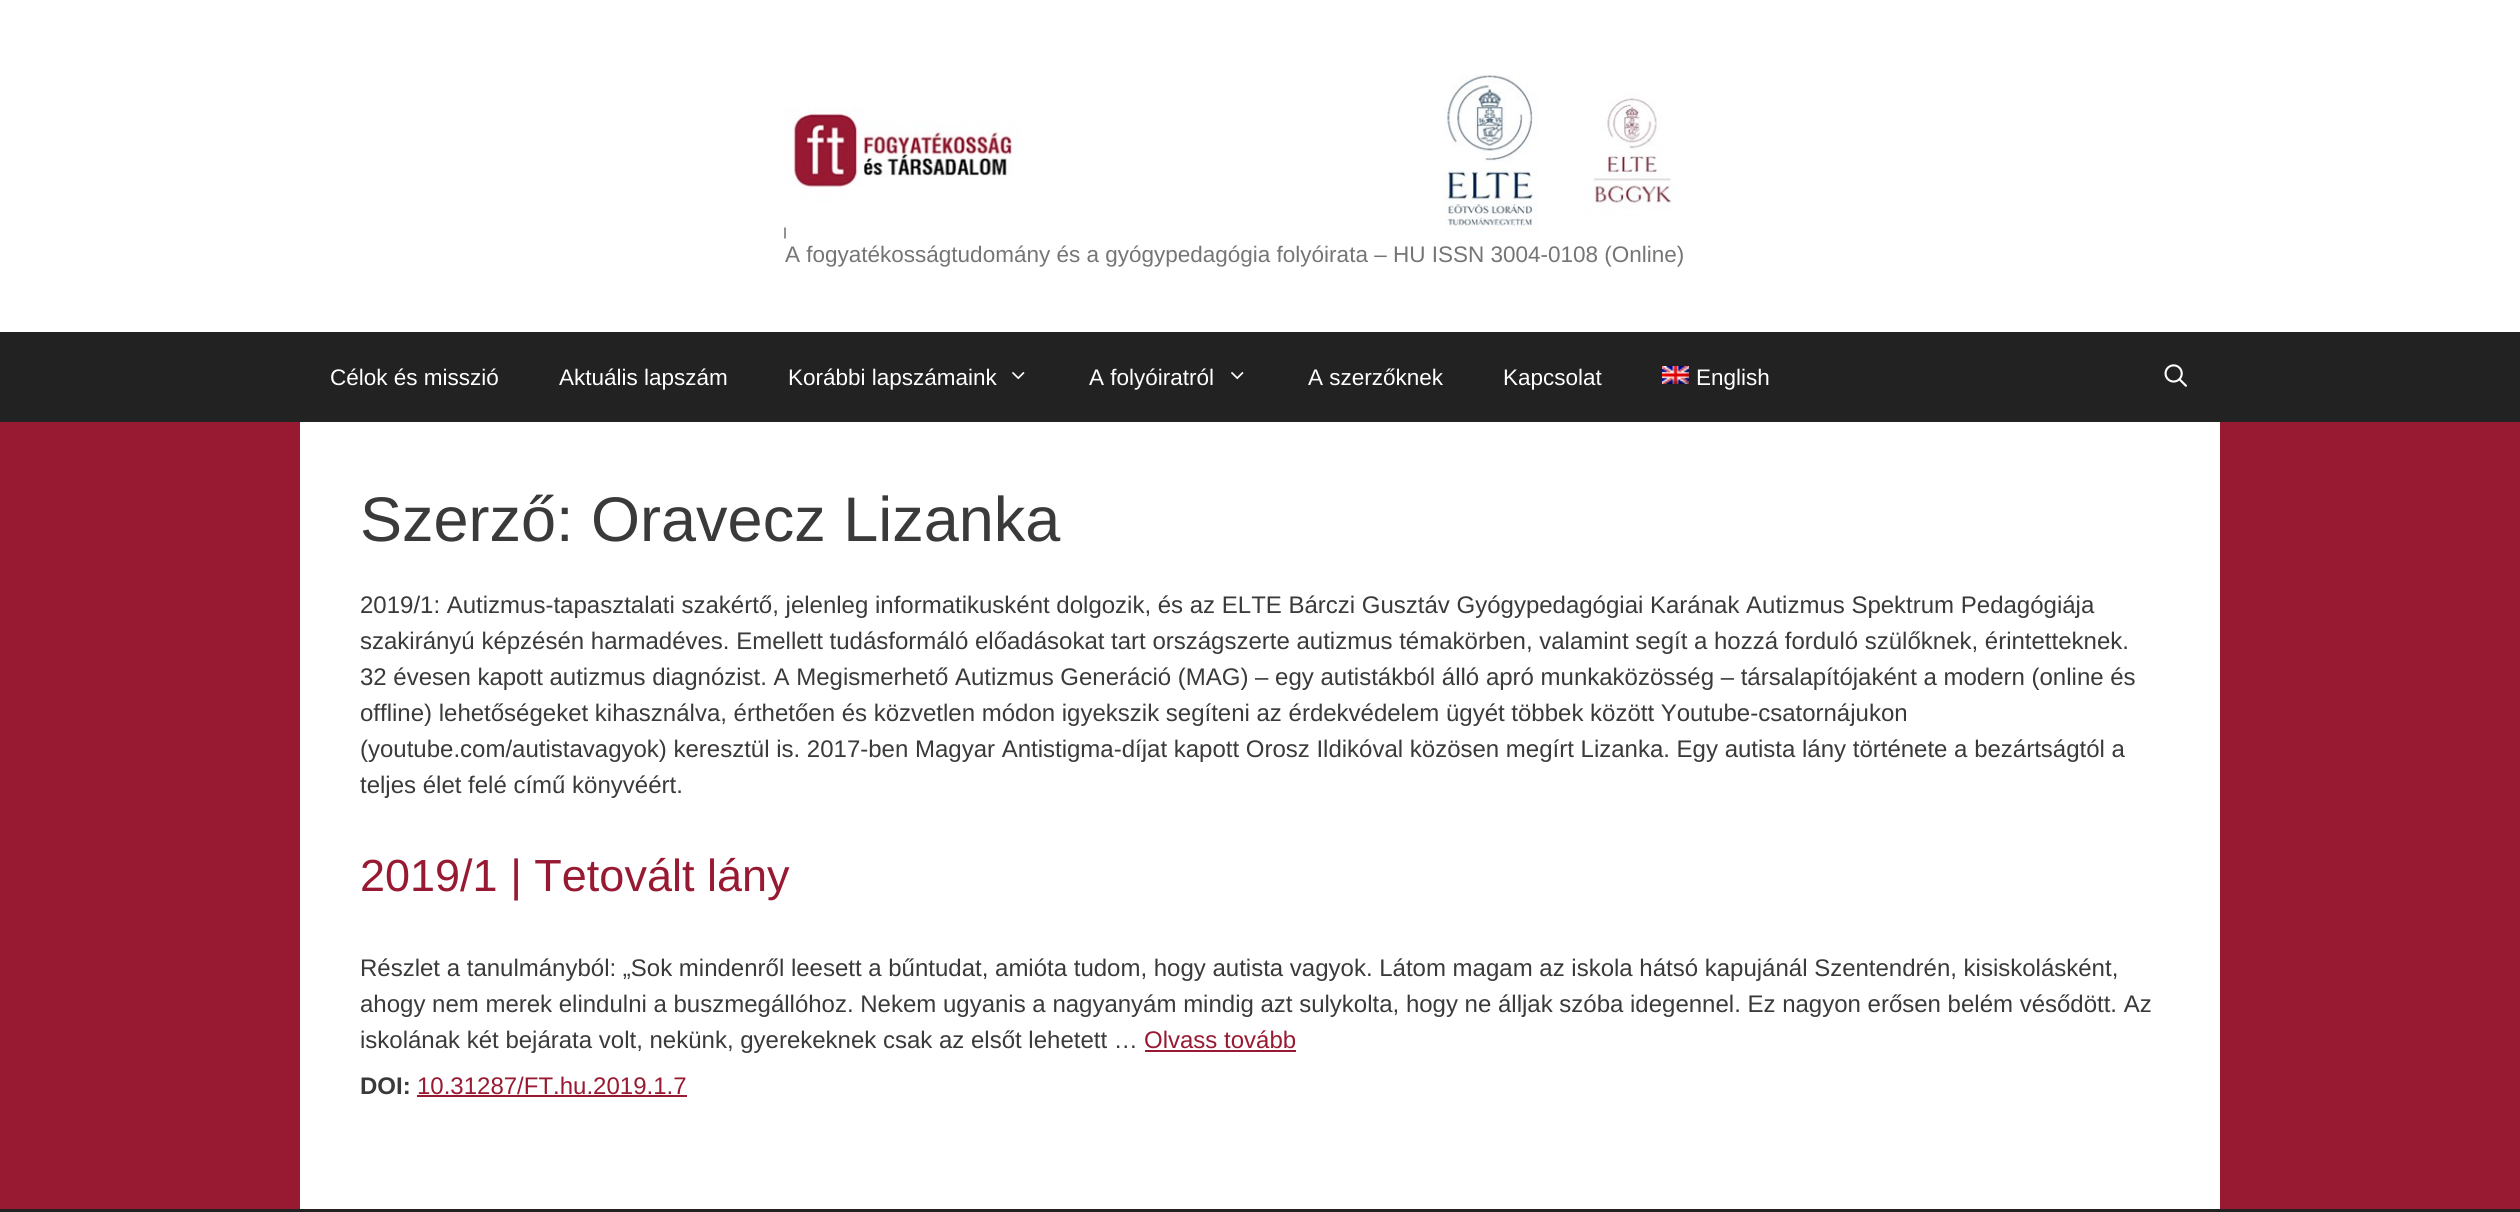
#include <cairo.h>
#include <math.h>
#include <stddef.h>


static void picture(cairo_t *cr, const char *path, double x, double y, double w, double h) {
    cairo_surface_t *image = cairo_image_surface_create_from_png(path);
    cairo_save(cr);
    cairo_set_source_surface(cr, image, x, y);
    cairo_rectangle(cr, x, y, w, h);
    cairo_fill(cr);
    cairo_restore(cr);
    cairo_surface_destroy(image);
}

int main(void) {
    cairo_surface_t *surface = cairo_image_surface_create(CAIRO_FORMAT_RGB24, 2520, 1212);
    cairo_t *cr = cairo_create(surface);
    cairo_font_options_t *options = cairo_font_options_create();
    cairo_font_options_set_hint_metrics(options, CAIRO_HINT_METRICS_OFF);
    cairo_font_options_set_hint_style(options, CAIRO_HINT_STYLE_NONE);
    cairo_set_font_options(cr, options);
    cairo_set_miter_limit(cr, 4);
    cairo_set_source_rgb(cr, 0.596, 0.102, 0.196);
    cairo_paint(cr);
    cairo_set_source_rgb(cr, 1, 1, 1);
    cairo_rectangle(cr, 0, 0, 2520, 332);
    cairo_fill(cr);
    picture(cr, "img1.png", 784, 75, 895, 164);
    cairo_select_font_face(cr, "Liberation Sans", CAIRO_FONT_SLANT_NORMAL, CAIRO_FONT_WEIGHT_NORMAL);
    cairo_set_font_size(cr, 22.5);
    cairo_set_source_rgb(cr, 0.459, 0.459, 0.459);
    cairo_move_to(cr, 785, 262);
    cairo_show_text(cr, "A fogyatékosságtudomány és a gyógypedagógia folyóirata – HU ISSN 3004-0108 (Online)");
    cairo_set_source_rgb(cr, 0.133, 0.133, 0.133);
    cairo_rectangle(cr, 0, 332, 2520, 90);
    cairo_fill(cr);
    cairo_set_source_rgb(cr, 1, 1, 1);
    cairo_move_to(cr, 330, 385);
    cairo_show_text(cr, "Célok és misszió");
    cairo_move_to(cr, 559, 385);
    cairo_show_text(cr, "Aktuális lapszám");
    cairo_move_to(cr, 788, 385);
    cairo_show_text(cr, "Korábbi lapszámaink");
    picture(cr, "img2.png", 1012, 372, 13, 8);
    cairo_move_to(cr, 1089, 385);
    cairo_show_text(cr, "A folyóiratról");
    picture(cr, "img2.png", 1231, 372, 13, 8);
    cairo_move_to(cr, 1308, 385);
    cairo_show_text(cr, "A szerzőknek");
    cairo_move_to(cr, 1503, 385);
    cairo_show_text(cr, "Kapcsolat");
    picture(cr, "img3.png", 1662, 366, 27, 18);
    cairo_move_to(cr, 1696, 385);
    cairo_show_text(cr, "English");
    picture(cr, "img4.png", 2164, 364, 23, 23);
    cairo_rectangle(cr, 300, 422, 1920, 787);
    cairo_fill(cr);
    cairo_set_font_size(cr, 63);
    cairo_set_source_rgb(cr, 0.227, 0.227, 0.227);
    cairo_move_to(cr, 360, 541);
    cairo_show_text(cr, "Szerző: Oravecz Lizanka");
    cairo_set_font_size(cr, 24);
    cairo_move_to(cr, 360, 613);
    cairo_show_text(cr, "2019/1: Autizmus-tapasztalati szakértő, jelenleg informatikusként dolgozik, és az ELTE Bárczi Gusztáv Gyógypedagógiai Karának Autizmus Spektrum Pedagógiája");
    cairo_move_to(cr, 360, 649);
    cairo_show_text(cr, "szakirányú képzésén harmadéves. Emellett tudásformáló előadásokat tart országszerte autizmus témakörben, valamint segít a hozzá forduló szülőknek, érintetteknek.");
    cairo_move_to(cr, 360, 685);
    cairo_show_text(cr, "32 évesen kapott autizmus diagnózist. A Megismerhető Autizmus Generáció (MAG) – egy autistákból álló apró munkaközösség – társalapítójaként a modern (online és");
    cairo_move_to(cr, 360, 721);
    cairo_show_text(cr, "offline) lehetőségeket kihasználva, érthetően és közvetlen módon igyekszik segíteni az érdekvédelem ügyét többek között Youtube-csatornájukon");
    cairo_move_to(cr, 360, 757);
    cairo_show_text(cr, "(youtube.com/autistavagyok) keresztül is. 2017-ben Magyar Antistigma-díjat kapott Orosz Ildikóval közösen megírt Lizanka. Egy autista lány története a bezártságtól a");
    cairo_move_to(cr, 360, 793);
    cairo_show_text(cr, "teljes élet felé című könyvéért.");
    cairo_set_font_size(cr, 45);
    cairo_set_source_rgb(cr, 0.596, 0.102, 0.196);
    cairo_move_to(cr, 360, 891);
    cairo_show_text(cr, "2019/1 | Tetovált lány");
    cairo_set_font_size(cr, 24);
    cairo_set_source_rgb(cr, 0.227, 0.227, 0.227);
    cairo_move_to(cr, 360, 976);
    cairo_show_text(cr, "Részlet a tanulmányból: „Sok mindenről leesett a bűntudat, amióta tudom, hogy autista vagyok. Látom magam az iskola hátsó kapujánál Szentendrén, kisiskolásként,");
    cairo_move_to(cr, 360, 1012);
    cairo_show_text(cr, "ahogy nem merek elindulni a buszmegállóhoz. Nekem ugyanis a nagyanyám mindig azt sulykolta, hogy ne álljak szóba idegennel. Ez nagyon erősen belém vésődött. Az");
    cairo_move_to(cr, 360, 1048);
    cairo_show_text(cr, "iskolának két bejárata volt, nekünk, gyerekeknek csak az elsőt lehetett …");
    cairo_set_source_rgb(cr, 0.596, 0.102, 0.196);
    cairo_move_to(cr, 1144, 1048);
    cairo_show_text(cr, "Olvass tovább");
    cairo_rectangle(cr, 1145, 1050, 151, 2);
    cairo_fill(cr);
    cairo_select_font_face(cr, "Liberation Sans", CAIRO_FONT_SLANT_NORMAL, CAIRO_FONT_WEIGHT_BOLD);
    cairo_set_source_rgb(cr, 0.227, 0.227, 0.227);
    cairo_move_to(cr, 360, 1094);
    cairo_show_text(cr, "DOI:");
    cairo_select_font_face(cr, "Liberation Sans", CAIRO_FONT_SLANT_NORMAL, CAIRO_FONT_WEIGHT_NORMAL);
    cairo_set_source_rgb(cr, 0.596, 0.102, 0.196);
    cairo_move_to(cr, 417, 1094);
    cairo_show_text(cr, "10.31287/FT.hu.2019.1.7");
    cairo_rectangle(cr, 417, 1095, 270, 2);
    cairo_fill(cr);
    cairo_set_source_rgb(cr, 0.133, 0.133, 0.133);
    cairo_rectangle(cr, 0, 1209, 2520, 3);
    cairo_fill(cr);
    cairo_surface_write_to_png(surface, "page.png");
    cairo_font_options_destroy(options);
    cairo_destroy(cr);
    cairo_surface_destroy(surface);
    return 0;
}
